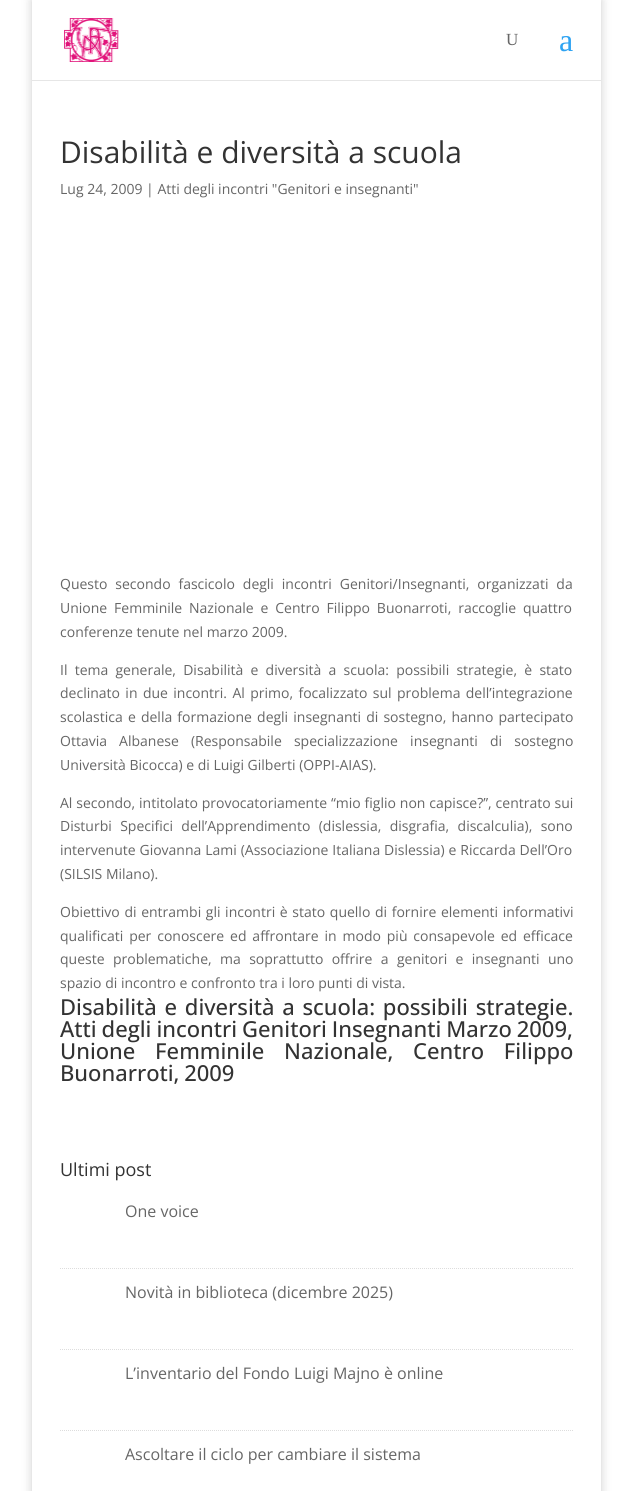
#include <cairo.h>
#include <math.h>
#include <stddef.h>


static void spaced_text(cairo_t *cr, double x, double y, const char *s, double letter, double word) {
    cairo_move_to(cr, x, y);
    while (*s) {
        char ch[5] = {0};
        int n = 0;
        do ch[n++] = *s++; while ((*s & 0xC0) == 0x80);
        cairo_show_text(cr, ch);
        cairo_rel_move_to(cr, letter + word * (*ch == ' '), 0);
    }
}

static void round_rect(cairo_t *cr, double x, double y, double w, double h, double r) {
    cairo_new_sub_path(cr);
    cairo_arc(cr, x + w - r, y + h - r, r, 0, M_PI / 2);
    cairo_arc(cr, x + r, y + h - r, r, M_PI / 2, M_PI);
    cairo_arc(cr, x + r, y + r, r, M_PI, 1.5 * M_PI);
    cairo_arc(cr, x + w - r, y + r, r, 1.5 * M_PI, 2 * M_PI);
    cairo_close_path(cr);
}

static void shadow(cairo_t *cr, double x, double y, double w, double h, double r, double blur, double alpha) {
    cairo_push_group_with_content(cr, CAIRO_CONTENT_ALPHA);
    cairo_set_operator(cr, CAIRO_OPERATOR_SOURCE);
    for (int i = 15; i >= -15 && fmin(w, h) + blur * i / 3 > 0; i -= 2) {
        double e = blur * i / 6;
        cairo_set_source_rgba(cr, 0, 0, 0, alpha * erfc((i - 1) / 8.5) / 2);
        round_rect(cr, x - e, y - e, w + 2 * e, h + 2 * e, fmax(0, fmin(r + e + blur * .6, fmin(w, h) / 2 + e)));
        cairo_fill(cr);
    }
    cairo_pattern_t *soft = cairo_pop_group(cr);
    cairo_mask(cr, soft);
    cairo_pattern_destroy(soft);
}

static void picture(cairo_t *cr, const char *path, double x, double y, double w, double h) {
    cairo_surface_t *image = cairo_image_surface_create_from_png(path);
    cairo_save(cr);
    cairo_set_source_surface(cr, image, x, y);
    cairo_rectangle(cr, x, y, w, h);
    cairo_fill(cr);
    cairo_restore(cr);
    cairo_surface_destroy(image);
}

int main(void) {
    cairo_surface_t *surface = cairo_image_surface_create(CAIRO_FORMAT_RGB24, 633, 1491);
    cairo_t *cr = cairo_create(surface);
    cairo_font_options_t *options = cairo_font_options_create();
    cairo_font_options_set_hint_metrics(options, CAIRO_HINT_METRICS_OFF);
    cairo_font_options_set_hint_style(options, CAIRO_HINT_STYLE_NONE);
    cairo_set_font_options(cr, options);
    cairo_set_miter_limit(cr, 4);
    cairo_set_source_rgb(cr, 1, 1, 1);
    cairo_paint(cr);
    cairo_save(cr);
    cairo_set_fill_rule(cr, CAIRO_FILL_RULE_EVEN_ODD);
    cairo_new_path(cr);
    cairo_move_to(cr, 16, 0);
    cairo_line_to(cr, 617, 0);
    cairo_line_to(cr, 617, 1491);
    cairo_line_to(cr, 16, 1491);
    cairo_close_path(cr);
    cairo_move_to(cr, 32, 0);
    cairo_line_to(cr, 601, 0);
    cairo_line_to(cr, 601, 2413);
    cairo_line_to(cr, 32, 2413);
    cairo_close_path(cr);
    cairo_clip(cr);
    cairo_set_source_rgb(cr, 0, 0, 0);
    shadow(cr, 32, 0, 569, 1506, 0, 5, 0.2);
    cairo_restore(cr);
    cairo_set_source_rgb(cr, 0.902, 0.902, 0.902);
    cairo_rectangle(cr, 32, 80, 569, 1);
    cairo_fill(cr);
    picture(cr, "img1.png", 64, 18, 55, 44);
    cairo_select_font_face(cr, "Liberation Serif", CAIRO_FONT_SLANT_NORMAL, CAIRO_FONT_WEIGHT_NORMAL);
    cairo_set_font_size(cr, 17);
    cairo_set_source_rgb(cr, 0.4, 0.4, 0.4);
    cairo_move_to(cr, 506, 45);
    cairo_show_text(cr, "U");
    cairo_set_font_size(cr, 32);
    cairo_set_source_rgb(cr, 0.18, 0.639, 0.949);
    cairo_move_to(cr, 559, 51);
    cairo_show_text(cr, "a");
    cairo_select_font_face(cr, "Open Sans", CAIRO_FONT_SLANT_NORMAL, CAIRO_FONT_WEIGHT_NORMAL);
    cairo_set_font_size(cr, 30);
    cairo_set_source_rgb(cr, 0.2, 0.2, 0.2);
    cairo_move_to(cr, 60, 163);
    cairo_show_text(cr, "Disabilità e diversità a scuola");
    cairo_set_font_size(cr, 14);
    cairo_set_source_rgb(cr, 0.4, 0.4, 0.4);
    cairo_move_to(cr, 60, 194);
    cairo_show_text(cr, "Lug 24, 2009 | Atti degli incontri \"Genitori e insegnanti\"");
    spaced_text(cr, 60, 589, "Questo secondo fascicolo degli incontri Genitori/Insegnanti, organizzati da", 0, 4.25);
    spaced_text(cr, 60, 613, "Unione Femminile Nazionale e Centro Filippo Buonarroti, raccoglie quattro", 0, 3.25);
    cairo_move_to(cr, 60, 637);
    cairo_show_text(cr, "conferenze tenute nel marzo 2009.");
    spaced_text(cr, 60, 675, "Il tema generale, Disabilità e diversità a scuola: possibili strategie, è stato", 0, 3.6);
    spaced_text(cr, 60, 698, "declinato in due incontri. Al primo, focalizzato sul problema dell’integrazione", 0, 1.75);
    spaced_text(cr, 60, 722, "scolastica e della formazione degli insegnanti di sostegno, hanno partecipato", 0, 1.5);
    spaced_text(cr, 60, 746, "Ottavia Albanese (Responsabile specializzazione insegnanti di sostegno", 0, 8.5);
    cairo_move_to(cr, 60, 770);
    cairo_show_text(cr, "Università Bicocca) e di Luigi Gilberti (OPPI-AIAS).");
    spaced_text(cr, 60, 808, "Al secondo, intitolato provocatoriamente “mio figlio non capisce?”, centrato sui", 0, 0.25);
    spaced_text(cr, 60, 831, "Disturbi Specifici dell’Apprendimento (dislessia, disgrafia, discalculia), sono", 0, 4.75);
    spaced_text(cr, 60, 855, "intervenute Giovanna Lami (Associazione Italiana Dislessia) e Riccarda Dell’Oro", 0, 0.25);
    cairo_move_to(cr, 60, 879);
    cairo_show_text(cr, "(SILSIS Milano).");
    spaced_text(cr, 60, 917, "Obiettivo di entrambi gli incontri è stato quello di fornire elementi informativi", 0, 1);
    spaced_text(cr, 60, 941, "qualificati per conoscere ed affrontare in modo più consapevole ed efficace", 0, 2.25);
    spaced_text(cr, 60, 964, "queste problematiche, ma soprattutto offrire a genitori e insegnanti uno", 0, 4.75);
    cairo_move_to(cr, 60, 988);
    cairo_show_text(cr, "spazio di incontro e confronto tra i loro punti di vista.");
    cairo_select_font_face(cr, "Open Sans Medium", CAIRO_FONT_SLANT_NORMAL, CAIRO_FONT_WEIGHT_NORMAL);
    cairo_set_font_size(cr, 22);
    cairo_set_source_rgb(cr, 0.2, 0.2, 0.2);
    spaced_text(cr, 60, 1015, "Disabilità e diversità a scuola: possibili strategie.", 0, 2);
    spaced_text(cr, 60, 1037, "Atti degli incontri Genitori Insegnanti Marzo 2009,", 0, -0.75);
    spaced_text(cr, 60, 1059, "Unione Femminile Nazionale, Centro Filippo", 0, 14);
    spaced_text(cr, 60, 1081, "Buonarroti, 2009", 0, -1);
    cairo_select_font_face(cr, "Open Sans", CAIRO_FONT_SLANT_NORMAL, CAIRO_FONT_WEIGHT_NORMAL);
    cairo_set_font_size(cr, 18);
    cairo_move_to(cr, 60, 1176);
    cairo_show_text(cr, "Ultimi post");
    cairo_new_path(cr);
    cairo_move_to(cr, 60, 1268.5);
    cairo_line_to(cr, 573, 1268.5);
    cairo_set_source_rgb(cr, 0.867, 0.867, 0.867);
    cairo_set_line_width(cr, 1);
    cairo_set_dash(cr, (double[]){1, 1}, 2, 0);
    cairo_stroke(cr);
    cairo_set_font_size(cr, 16);
    cairo_set_source_rgb(cr, 0.4, 0.4, 0.4);
    cairo_move_to(cr, 125, 1217);
    cairo_show_text(cr, "One voice");
    cairo_new_path(cr);
    cairo_move_to(cr, 60, 1349.5);
    cairo_line_to(cr, 573, 1349.5);
    cairo_set_source_rgb(cr, 0.867, 0.867, 0.867);
    cairo_stroke(cr);
    cairo_set_source_rgb(cr, 0.4, 0.4, 0.4);
    cairo_move_to(cr, 125, 1298);
    cairo_show_text(cr, "Novità in biblioteca (dicembre 2025)");
    cairo_new_path(cr);
    cairo_move_to(cr, 60, 1430.5);
    cairo_line_to(cr, 573, 1430.5);
    cairo_set_source_rgb(cr, 0.867, 0.867, 0.867);
    cairo_stroke(cr);
    cairo_set_source_rgb(cr, 0.4, 0.4, 0.4);
    cairo_move_to(cr, 125, 1379);
    cairo_show_text(cr, "L’inventario del Fondo Luigi Majno è online");
    cairo_move_to(cr, 125, 1460);
    cairo_show_text(cr, "Ascoltare il ciclo per cambiare il sistema");
    cairo_surface_write_to_png(surface, "page.png");
    cairo_font_options_destroy(options);
    cairo_destroy(cr);
    cairo_surface_destroy(surface);
    return 0;
}
